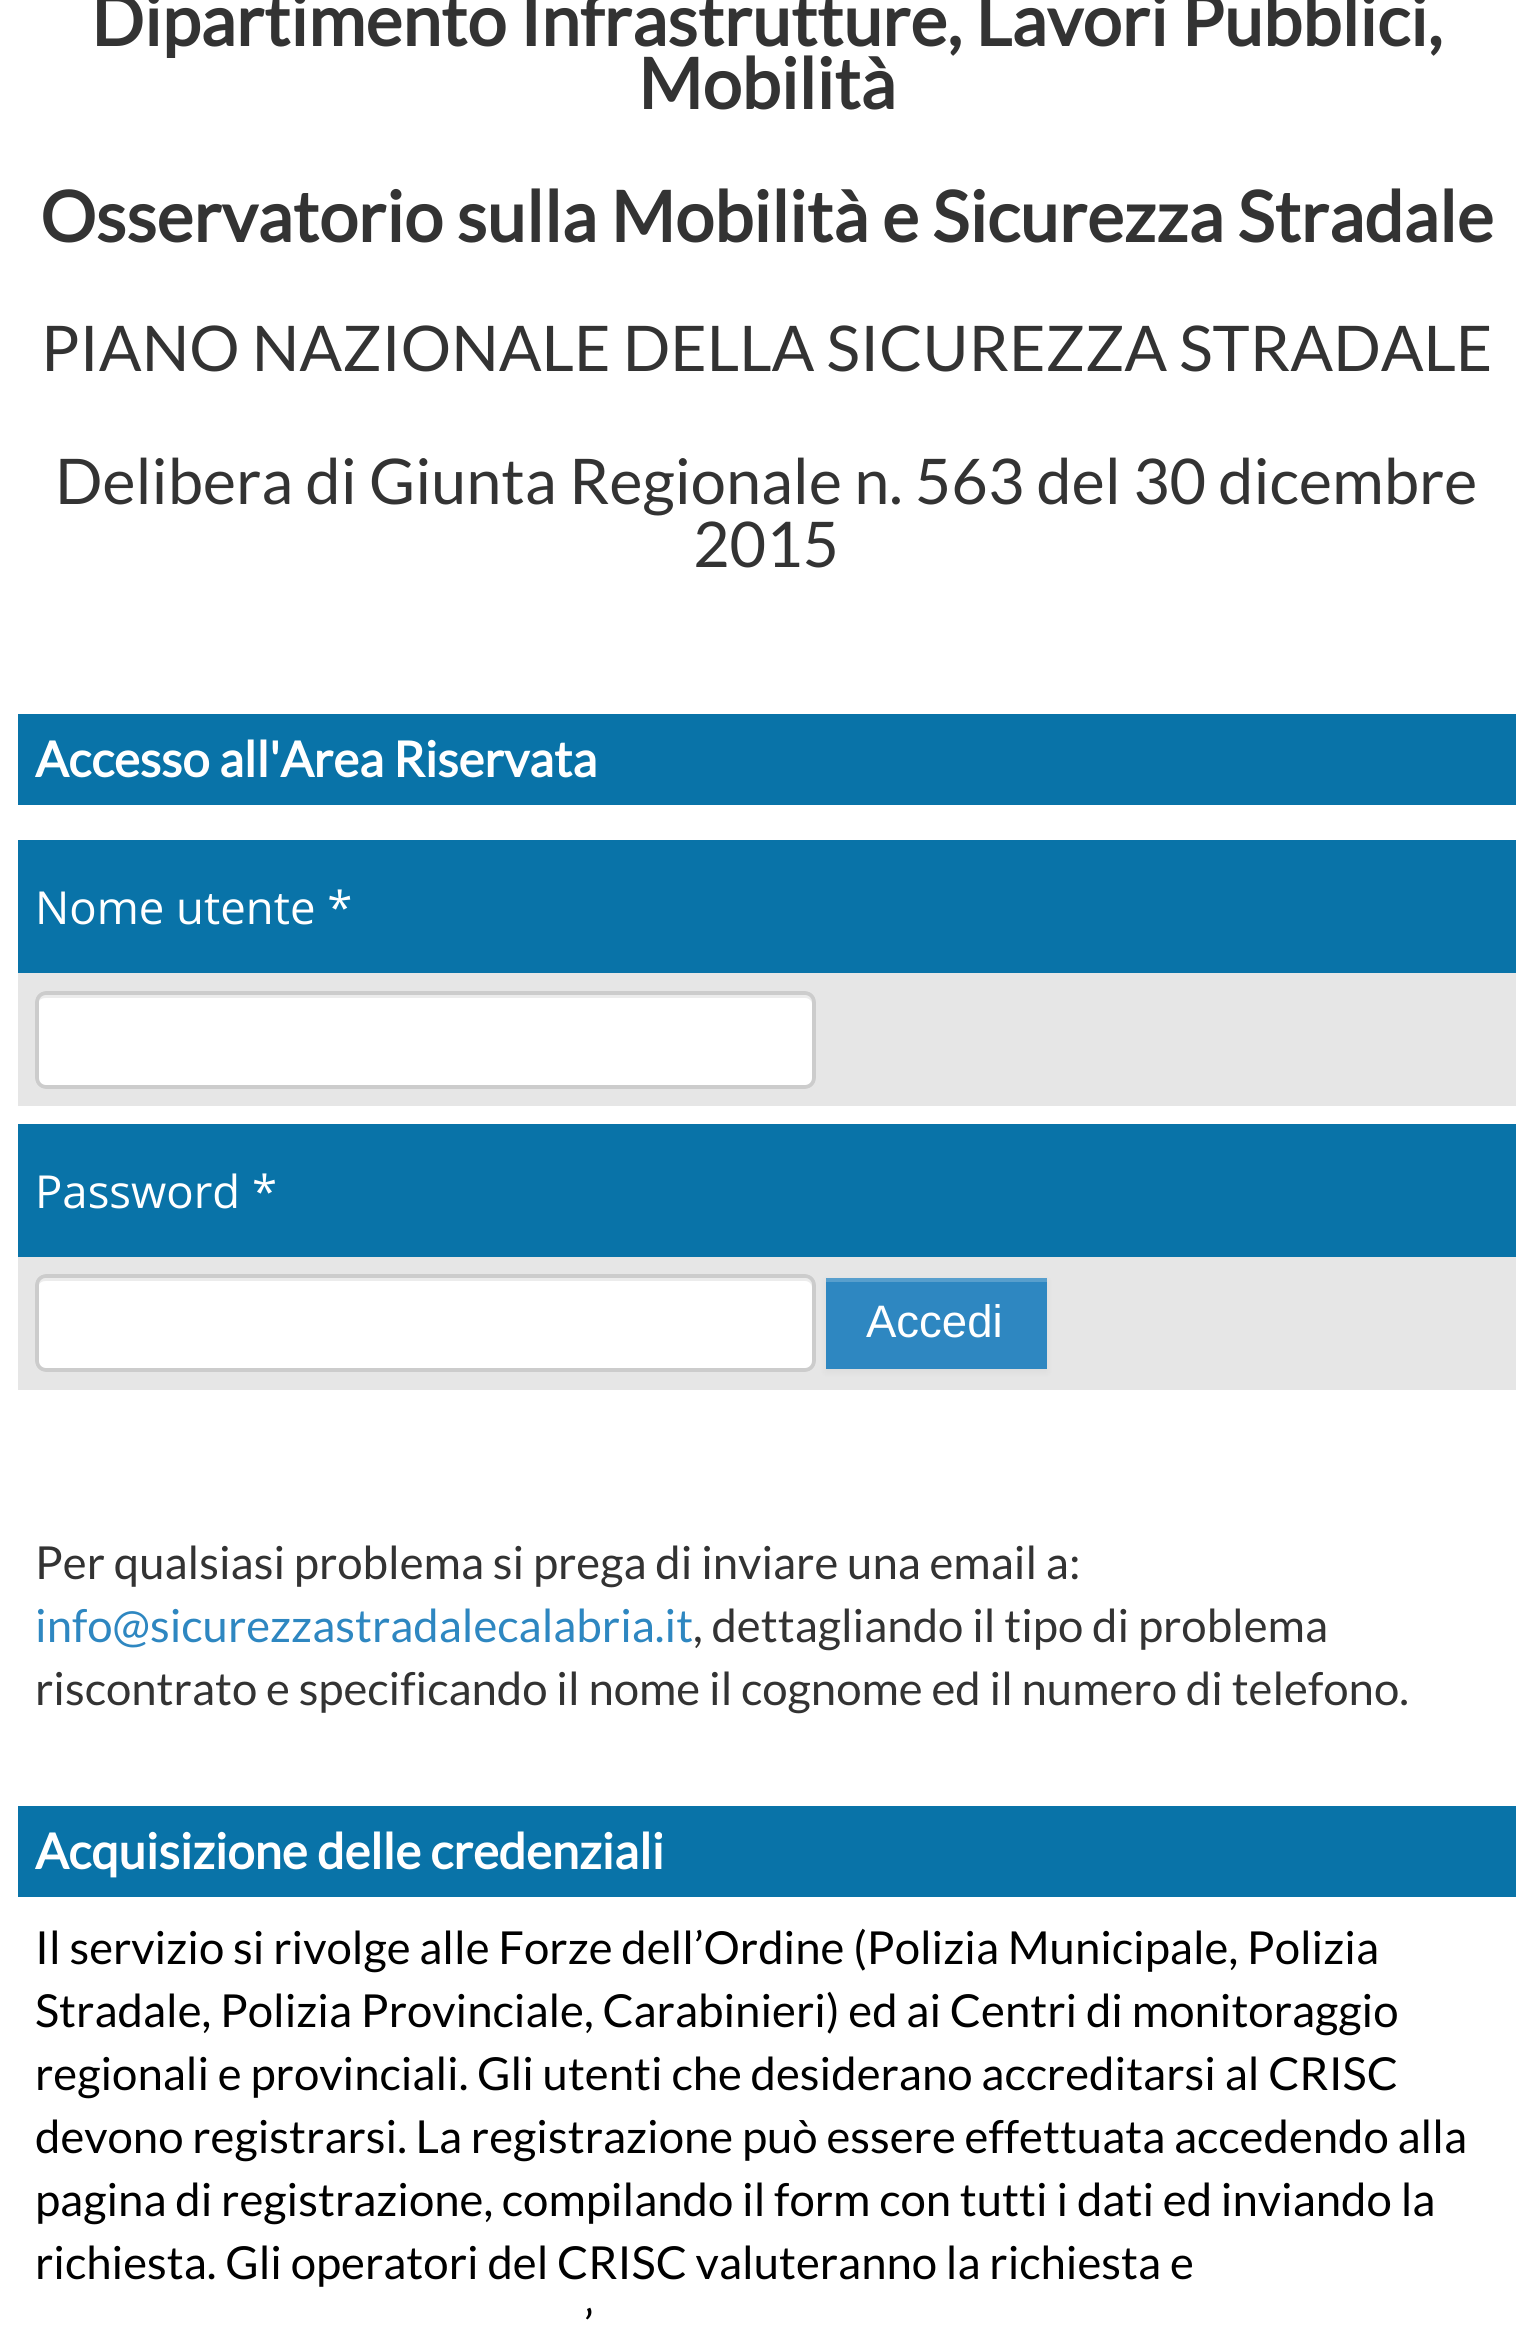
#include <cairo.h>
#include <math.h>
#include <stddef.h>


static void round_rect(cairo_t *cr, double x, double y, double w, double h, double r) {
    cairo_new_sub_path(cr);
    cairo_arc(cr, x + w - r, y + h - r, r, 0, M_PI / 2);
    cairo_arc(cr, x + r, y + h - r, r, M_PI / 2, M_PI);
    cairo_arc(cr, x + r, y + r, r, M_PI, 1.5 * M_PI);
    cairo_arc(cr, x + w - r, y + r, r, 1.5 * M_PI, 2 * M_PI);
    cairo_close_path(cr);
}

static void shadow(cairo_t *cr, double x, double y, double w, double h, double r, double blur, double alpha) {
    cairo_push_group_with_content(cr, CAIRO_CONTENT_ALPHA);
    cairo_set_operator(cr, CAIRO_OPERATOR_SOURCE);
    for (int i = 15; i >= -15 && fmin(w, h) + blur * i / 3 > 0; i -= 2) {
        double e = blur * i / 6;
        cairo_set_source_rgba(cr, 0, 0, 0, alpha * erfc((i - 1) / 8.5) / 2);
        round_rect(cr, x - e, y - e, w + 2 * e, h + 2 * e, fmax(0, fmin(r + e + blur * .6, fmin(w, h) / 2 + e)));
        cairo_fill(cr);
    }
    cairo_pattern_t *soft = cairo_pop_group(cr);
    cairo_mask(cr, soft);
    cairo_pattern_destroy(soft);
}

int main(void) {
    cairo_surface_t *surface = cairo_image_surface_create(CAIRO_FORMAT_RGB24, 1531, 2327);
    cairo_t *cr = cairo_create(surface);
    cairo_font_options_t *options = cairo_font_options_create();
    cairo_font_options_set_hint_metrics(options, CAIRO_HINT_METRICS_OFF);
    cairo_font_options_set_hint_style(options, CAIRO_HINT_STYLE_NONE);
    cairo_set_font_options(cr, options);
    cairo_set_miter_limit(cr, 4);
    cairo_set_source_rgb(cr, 1, 1, 1);
    cairo_paint(cr);
    cairo_select_font_face(cr, "Lato", CAIRO_FONT_SLANT_NORMAL, CAIRO_FONT_WEIGHT_BOLD);
    cairo_set_font_size(cr, 70);
    cairo_set_source_rgb(cr, 0.2, 0.2, 0.2);
    cairo_move_to(cr, 91, 46);
    cairo_show_text(cr, "Dipartimento Infrastrutture, Lavori Pubblici,");
    cairo_move_to(cr, 638, 109);
    cairo_show_text(cr, "Mobilità");
    cairo_move_to(cr, 40, 242);
    cairo_show_text(cr, "Osservatorio sulla Mobilità e Sicurezza Stradale");
    cairo_select_font_face(cr, "Lato", CAIRO_FONT_SLANT_NORMAL, CAIRO_FONT_WEIGHT_NORMAL);
    cairo_set_font_size(cr, 63);
    cairo_move_to(cr, 41, 371);
    cairo_show_text(cr, "PIANO NAZIONALE DELLA SICUREZZA STRADALE");
    cairo_move_to(cr, 55, 504);
    cairo_show_text(cr, "Delibera di Giunta Regionale n. 563 del 30 dicembre");
    cairo_move_to(cr, 693, 567);
    cairo_show_text(cr, "2015");
    cairo_set_source_rgb(cr, 0.039, 0.451, 0.659);
    cairo_rectangle(cr, 18, 714, 1498, 91);
    cairo_fill(cr);
    cairo_select_font_face(cr, "Lato", CAIRO_FONT_SLANT_NORMAL, CAIRO_FONT_WEIGHT_BOLD);
    cairo_set_font_size(cr, 49);
    cairo_set_source_rgb(cr, 1, 1, 1);
    cairo_move_to(cr, 35, 777);
    cairo_show_text(cr, "Accesso all'Area Riservata");
    cairo_set_source_rgb(cr, 0.039, 0.451, 0.659);
    cairo_rectangle(cr, 18, 840, 1498, 133);
    cairo_fill(cr);
    cairo_select_font_face(cr, "Open Sans", CAIRO_FONT_SLANT_NORMAL, CAIRO_FONT_WEIGHT_NORMAL);
    cairo_set_font_size(cr, 45.5);
    cairo_set_source_rgb(cr, 1, 1, 1);
    cairo_move_to(cr, 35, 924);
    cairo_show_text(cr, "Nome utente *");
    cairo_set_source_rgb(cr, 0.902, 0.902, 0.902);
    cairo_rectangle(cr, 18, 973, 1498, 133);
    cairo_fill(cr);
    cairo_set_source_rgb(cr, 1, 1, 1);
    round_rect(cr, 35, 991, 781, 98, 11);
    cairo_fill(cr);
    cairo_set_source_rgb(cr, 0.925, 0.925, 0.925);
    cairo_new_path(cr);
    cairo_move_to(cr, 46, 998);
    cairo_line_to(cr, 805, 998);
    cairo_curve_to(cr, 809, 998, 812, 1001, 812, 1004);
    cairo_line_to(cr, 812, 1001);
    cairo_curve_to(cr, 812, 997, 809, 994, 805, 994);
    cairo_line_to(cr, 46, 994);
    cairo_curve_to(cr, 42, 994, 39, 997, 39, 1001);
    cairo_curve_to(cr, 40, 999, 43, 998, 46, 998);
    cairo_close_path(cr);
    cairo_fill(cr);
    round_rect(cr, 37, 993, 777, 94, 9);
    cairo_set_source_rgb(cr, 0.8, 0.8, 0.8);
    cairo_set_line_width(cr, 4);
    cairo_stroke(cr);
    cairo_set_source_rgb(cr, 0.039, 0.451, 0.659);
    cairo_rectangle(cr, 18, 1124, 1498, 133);
    cairo_fill(cr);
    cairo_set_source_rgb(cr, 1, 1, 1);
    cairo_move_to(cr, 35, 1208);
    cairo_show_text(cr, "Password *");
    cairo_set_source_rgb(cr, 0.902, 0.902, 0.902);
    cairo_rectangle(cr, 18, 1257, 1498, 133);
    cairo_fill(cr);
    cairo_set_source_rgb(cr, 1, 1, 1);
    round_rect(cr, 35, 1274, 781, 98, 11);
    cairo_fill(cr);
    cairo_set_source_rgb(cr, 0.925, 0.925, 0.925);
    cairo_new_path(cr);
    cairo_move_to(cr, 46, 1281);
    cairo_line_to(cr, 805, 1281);
    cairo_curve_to(cr, 809, 1281, 812, 1284, 812, 1288);
    cairo_line_to(cr, 812, 1285);
    cairo_curve_to(cr, 812, 1281, 809, 1278, 805, 1278);
    cairo_line_to(cr, 46, 1278);
    cairo_curve_to(cr, 42, 1278, 39, 1281, 39, 1285);
    cairo_curve_to(cr, 40, 1282, 43, 1281, 46, 1281);
    cairo_close_path(cr);
    cairo_fill(cr);
    round_rect(cr, 37, 1276, 777, 94, 9);
    cairo_set_source_rgb(cr, 0.8, 0.8, 0.8);
    cairo_stroke(cr);
    cairo_set_source_rgb(cr, 0, 0, 0);
    shadow(cr, 826, 1281, 221, 91, 0, 3.5, 0.05);
    cairo_set_source_rgb(cr, 0.18, 0.529, 0.757);
    cairo_rectangle(cr, 826, 1282, 221, 87);
    cairo_fill(cr);
    cairo_set_source_rgb(cr, 0.345, 0.624, 0.804);
    cairo_rectangle(cr, 826, 1278, 221, 4);
    cairo_fill(cr);
    cairo_select_font_face(cr, "Liberation Sans", CAIRO_FONT_SLANT_NORMAL, CAIRO_FONT_WEIGHT_NORMAL);
    cairo_set_source_rgb(cr, 1, 1, 1);
    cairo_move_to(cr, 866, 1337);
    cairo_show_text(cr, "Accedi");
    cairo_select_font_face(cr, "Lato", CAIRO_FONT_SLANT_NORMAL, CAIRO_FONT_WEIGHT_NORMAL);
    cairo_set_source_rgb(cr, 0.2, 0.2, 0.2);
    cairo_move_to(cr, 35, 1579);
    cairo_show_text(cr, "Per qualsiasi problema si prega di inviare una email a:");
    cairo_set_source_rgb(cr, 0.18, 0.529, 0.757);
    cairo_move_to(cr, 35, 1642);
    cairo_show_text(cr, "info@sicurezzastradalecalabria.it");
    cairo_set_source_rgb(cr, 0.2, 0.2, 0.2);
    cairo_move_to(cr, 693, 1642);
    cairo_show_text(cr, ", dettagliando il tipo di problema");
    cairo_move_to(cr, 35, 1705);
    cairo_show_text(cr, "riscontrato e specificando il nome il cognome ed il numero di telefono.");
    cairo_set_source_rgb(cr, 0.039, 0.451, 0.659);
    cairo_rectangle(cr, 18, 1806, 1498, 91);
    cairo_fill(cr);
    cairo_select_font_face(cr, "Lato", CAIRO_FONT_SLANT_NORMAL, CAIRO_FONT_WEIGHT_BOLD);
    cairo_set_font_size(cr, 49);
    cairo_set_source_rgb(cr, 1, 1, 1);
    cairo_move_to(cr, 35, 1869);
    cairo_show_text(cr, "Acquisizione delle credenziali");
    cairo_select_font_face(cr, "Lato", CAIRO_FONT_SLANT_NORMAL, CAIRO_FONT_WEIGHT_NORMAL);
    cairo_set_font_size(cr, 45.5);
    cairo_set_source_rgb(cr, 0, 0, 0);
    cairo_move_to(cr, 35, 1964);
    cairo_show_text(cr, "Il servizio si rivolge alle Forze dell’Ordine (Polizia Municipale, Polizia");
    cairo_move_to(cr, 35, 2027);
    cairo_show_text(cr, "Stradale, Polizia Provinciale, Carabinieri) ed ai Centri di monitoraggio");
    cairo_move_to(cr, 35, 2090);
    cairo_show_text(cr, "regionali e provinciali. Gli utenti che desiderano accreditarsi al CRISC");
    cairo_move_to(cr, 35, 2153);
    cairo_show_text(cr, "devono registrarsi. La registrazione può essere effettuata accedendo alla");
    cairo_move_to(cr, 35, 2216);
    cairo_show_text(cr, "pagina di registrazione, compilando il form con tutti i dati ed inviando la");
    cairo_move_to(cr, 35, 2279);
    cairo_show_text(cr, "richiesta. Gli operatori del CRISC valuteranno la richiesta e");
    cairo_move_to(cr, 584, 2342);
    cairo_show_text(cr, "’");
    cairo_surface_write_to_png(surface, "page.png");
    cairo_font_options_destroy(options);
    cairo_destroy(cr);
    cairo_surface_destroy(surface);
    return 0;
}
